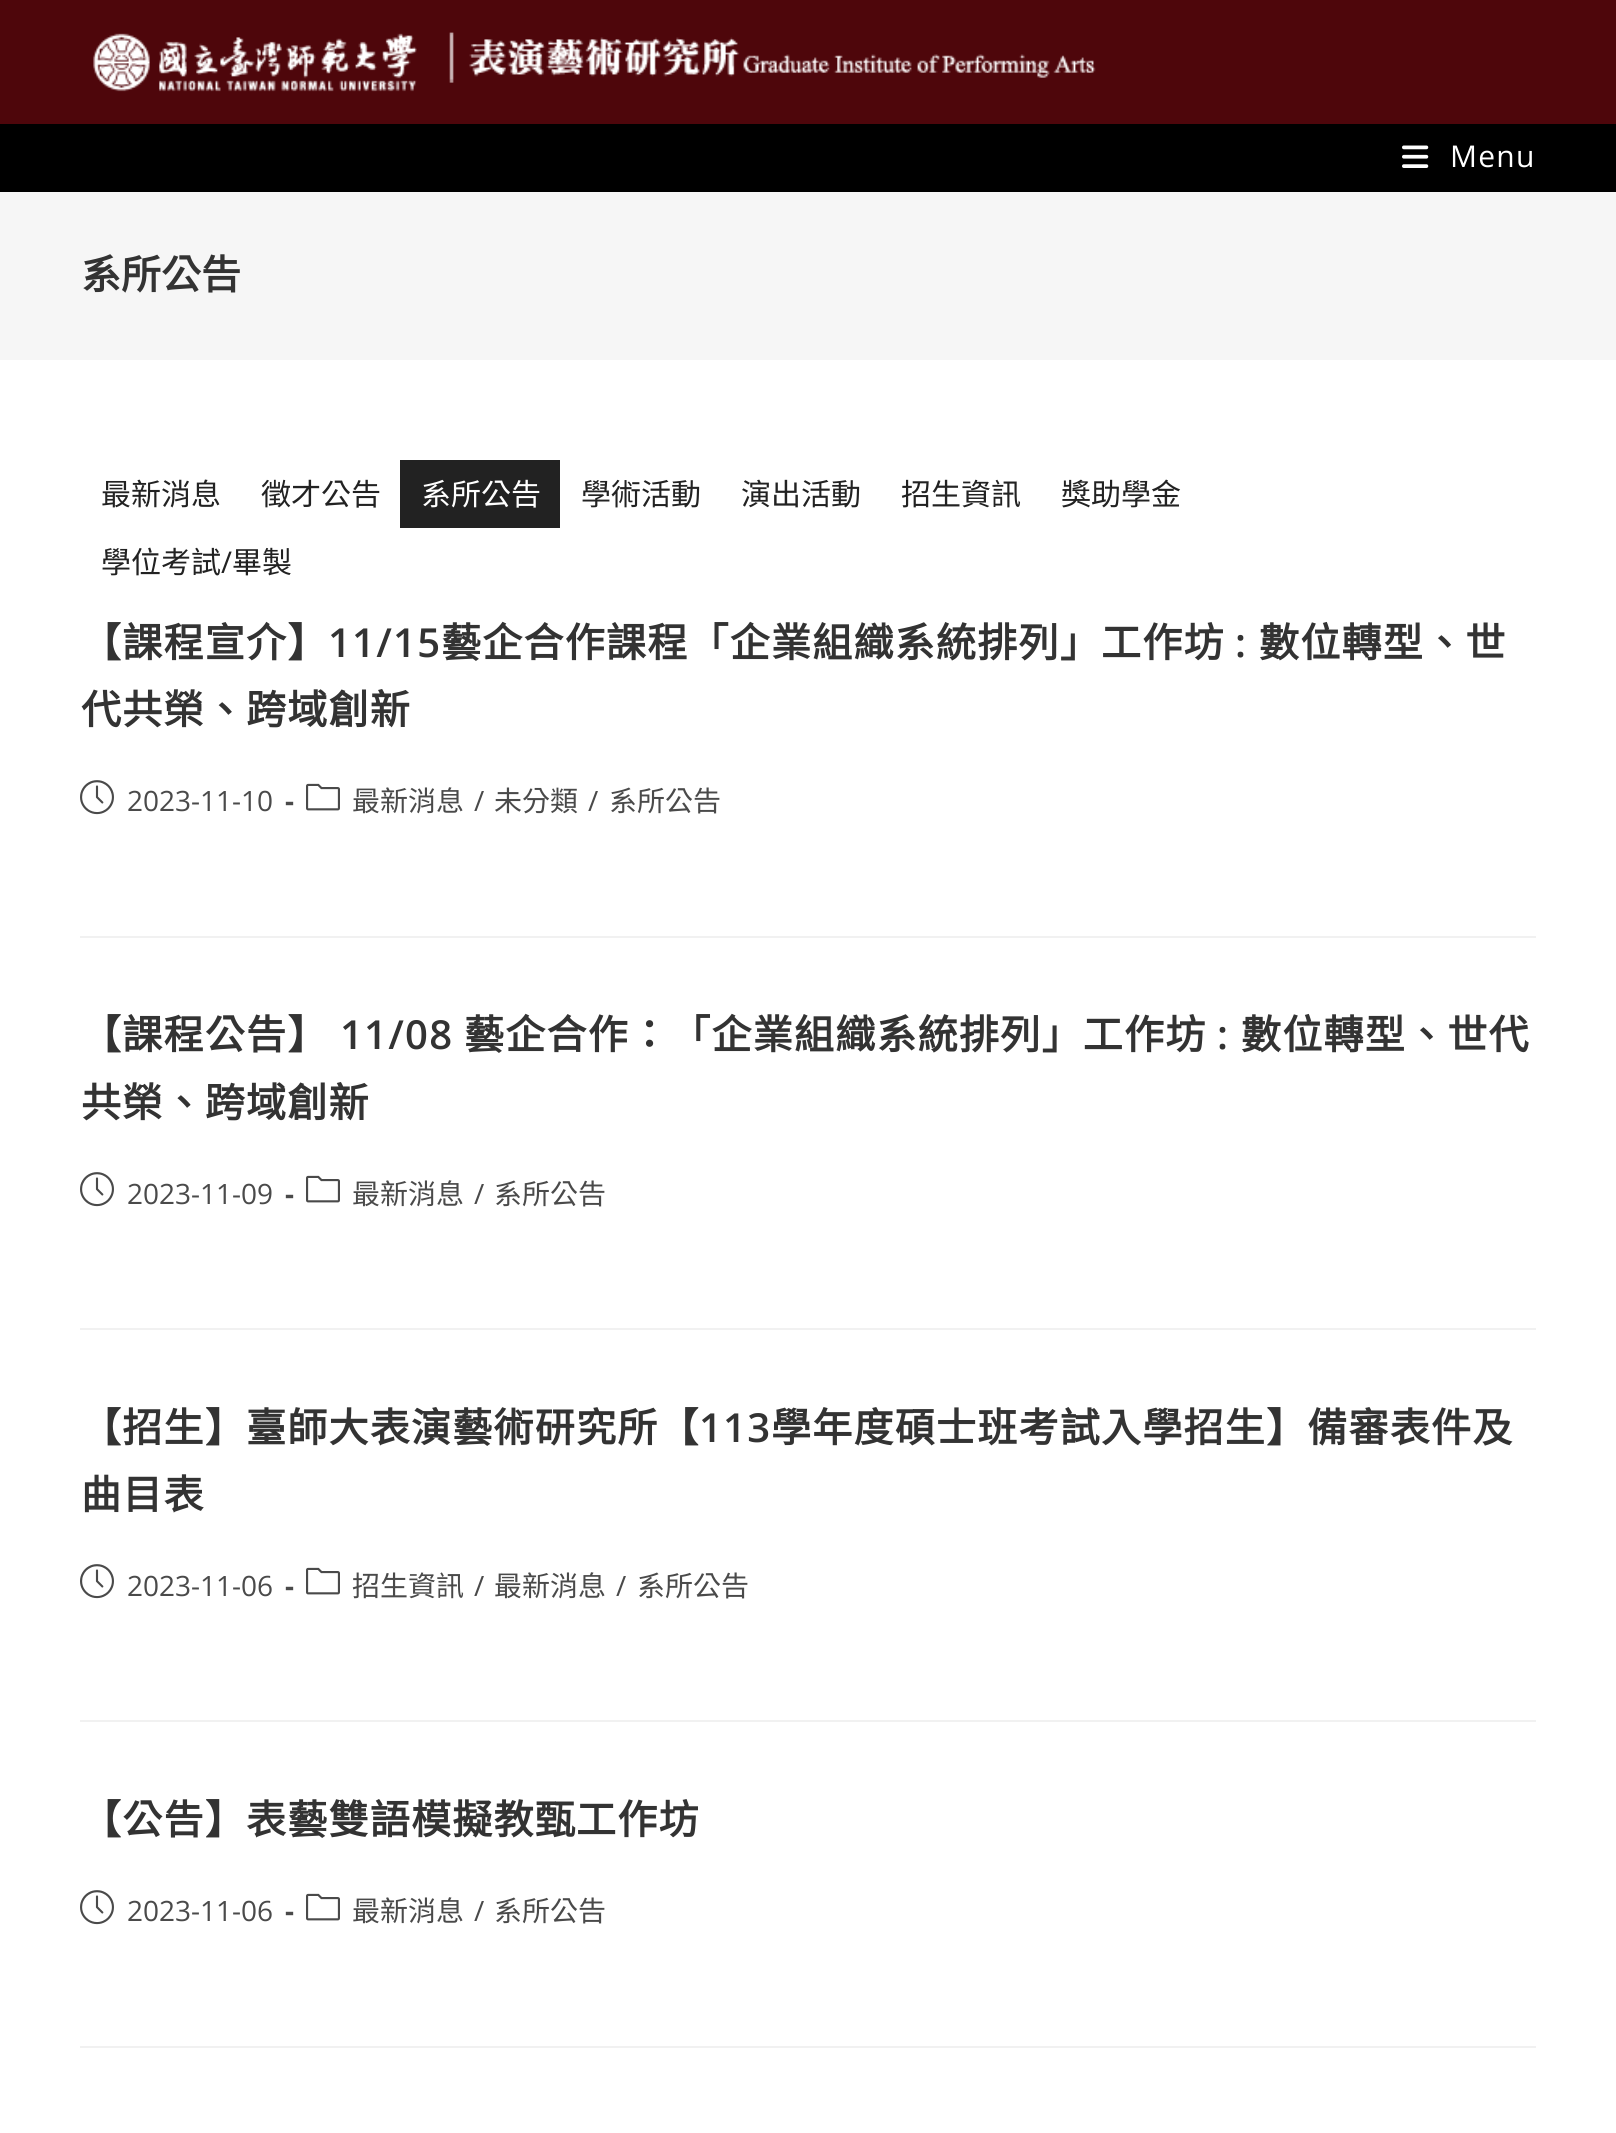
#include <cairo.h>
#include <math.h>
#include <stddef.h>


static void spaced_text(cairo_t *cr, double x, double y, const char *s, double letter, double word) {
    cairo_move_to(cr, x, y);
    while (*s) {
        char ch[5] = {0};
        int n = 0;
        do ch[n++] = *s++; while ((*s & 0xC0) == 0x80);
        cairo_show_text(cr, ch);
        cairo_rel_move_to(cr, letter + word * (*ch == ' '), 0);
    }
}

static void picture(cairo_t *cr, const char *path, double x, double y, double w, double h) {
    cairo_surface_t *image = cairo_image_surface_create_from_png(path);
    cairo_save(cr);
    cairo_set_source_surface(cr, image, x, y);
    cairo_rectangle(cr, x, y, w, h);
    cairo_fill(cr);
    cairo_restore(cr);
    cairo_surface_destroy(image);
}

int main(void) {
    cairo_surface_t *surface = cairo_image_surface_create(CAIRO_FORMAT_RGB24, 1616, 2133);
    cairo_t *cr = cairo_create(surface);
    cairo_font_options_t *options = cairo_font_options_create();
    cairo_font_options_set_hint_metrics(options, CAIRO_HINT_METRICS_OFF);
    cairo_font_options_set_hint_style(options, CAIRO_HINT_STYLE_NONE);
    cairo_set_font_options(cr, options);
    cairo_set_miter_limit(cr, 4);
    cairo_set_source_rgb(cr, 1, 1, 1);
    cairo_paint(cr);
    cairo_set_source_rgb(cr, 0.306, 0.027, 0.043);
    cairo_rectangle(cr, 0, 0, 1616, 124);
    cairo_fill(cr);
    picture(cr, "img1.png", 93, 33, 324, 59);
    picture(cr, "img2.png", 449, 32, 647, 51);
    cairo_set_source_rgb(cr, 0, 0, 0);
    cairo_rectangle(cr, 0, 124, 1616, 68);
    cairo_fill(cr);
    picture(cr, "img3.png", 1402, 145, 27, 23);
    cairo_select_font_face(cr, "Open Sans", CAIRO_FONT_SLANT_NORMAL, CAIRO_FONT_WEIGHT_NORMAL);
    cairo_set_font_size(cr, 30);
    cairo_set_source_rgb(cr, 1, 1, 1);
    spaced_text(cr, 1450, 167, "Menu", 1.25, 0);
    cairo_set_source_rgb(cr, 0.961, 0.961, 0.961);
    cairo_rectangle(cr, 0, 192, 1616, 168);
    cairo_fill(cr);
    cairo_select_font_face(cr, "Noto Sans CJK TC", CAIRO_FONT_SLANT_NORMAL, CAIRO_FONT_WEIGHT_BOLD);
    cairo_set_font_size(cr, 40);
    cairo_set_source_rgb(cr, 0.2, 0.2, 0.2);
    cairo_move_to(cr, 81, 289);
    cairo_show_text(cr, "系所公告");
    cairo_select_font_face(cr, "Noto Sans CJK TC", CAIRO_FONT_SLANT_NORMAL, CAIRO_FONT_WEIGHT_NORMAL);
    cairo_set_font_size(cr, 30);
    cairo_set_source_rgb(cr, 0.133, 0.133, 0.133);
    cairo_move_to(cr, 101, 505);
    cairo_show_text(cr, "最新消息");
    cairo_move_to(cr, 261, 505);
    cairo_show_text(cr, "徵才公告");
    cairo_rectangle(cr, 400, 460, 160, 68);
    cairo_fill(cr);
    cairo_set_source_rgb(cr, 1, 1, 1);
    cairo_move_to(cr, 421, 505);
    cairo_show_text(cr, "系所公告");
    cairo_set_source_rgb(cr, 0.133, 0.133, 0.133);
    cairo_move_to(cr, 581, 505);
    cairo_show_text(cr, "學術活動");
    cairo_move_to(cr, 741, 505);
    cairo_show_text(cr, "演出活動");
    cairo_move_to(cr, 901, 505);
    cairo_show_text(cr, "招生資訊");
    cairo_move_to(cr, 1061, 505);
    cairo_show_text(cr, "獎助學金");
    cairo_move_to(cr, 101, 573);
    cairo_show_text(cr, "學位考試");
    cairo_select_font_face(cr, "Open Sans", CAIRO_FONT_SLANT_NORMAL, CAIRO_FONT_WEIGHT_NORMAL);
    cairo_move_to(cr, 221, 573);
    cairo_show_text(cr, "/");
    cairo_select_font_face(cr, "Noto Sans CJK TC", CAIRO_FONT_SLANT_NORMAL, CAIRO_FONT_WEIGHT_NORMAL);
    cairo_move_to(cr, 232, 573);
    cairo_show_text(cr, "畢製");
    cairo_set_source_rgb(cr, 0.945, 0.945, 0.945);
    cairo_rectangle(cr, 80, 936, 1456, 2);
    cairo_fill(cr);
    cairo_select_font_face(cr, "Noto Sans CJK TC", CAIRO_FONT_SLANT_NORMAL, CAIRO_FONT_WEIGHT_BOLD);
    cairo_set_font_size(cr, 40);
    cairo_set_source_rgb(cr, 0.2, 0.2, 0.2);
    spaced_text(cr, 81, 657, "【課程宣介】", 1.25, 0);
    cairo_select_font_face(cr, "Open Sans SemiBold", CAIRO_FONT_SLANT_NORMAL, CAIRO_FONT_WEIGHT_NORMAL);
    spaced_text(cr, 328, 657, "11/15", 1.25, 0);
    cairo_select_font_face(cr, "Noto Sans CJK TC", CAIRO_FONT_SLANT_NORMAL, CAIRO_FONT_WEIGHT_BOLD);
    spaced_text(cr, 441, 657, "藝企合作課程「企業組織系統排列」工作坊", 1.25, 0);
    cairo_select_font_face(cr, "Open Sans SemiBold", CAIRO_FONT_SLANT_NORMAL, CAIRO_FONT_WEIGHT_NORMAL);
    spaced_text(cr, 1235, 657, ":", 1.25, 0);
    cairo_select_font_face(cr, "Noto Sans CJK TC", CAIRO_FONT_SLANT_NORMAL, CAIRO_FONT_WEIGHT_BOLD);
    spaced_text(cr, 1259, 657, "數位轉型、世", 1.25, 0);
    spaced_text(cr, 81, 724, "代共榮、跨域創新", 1.25, 0);
    picture(cr, "img4.png", 80, 780, 34, 35);
    cairo_select_font_face(cr, "Open Sans", CAIRO_FONT_SLANT_NORMAL, CAIRO_FONT_WEIGHT_NORMAL);
    cairo_set_font_size(cr, 28);
    cairo_set_source_rgb(cr, 0.29, 0.29, 0.29);
    cairo_move_to(cr, 127, 811);
    cairo_show_text(cr, "2023-11-10");
    cairo_select_font_face(cr, "Open Sans", CAIRO_FONT_SLANT_NORMAL, CAIRO_FONT_WEIGHT_BOLD);
    cairo_move_to(cr, 285, 811);
    cairo_show_text(cr, "-");
    picture(cr, "img5.png", 306, 783, 34, 28);
    cairo_select_font_face(cr, "Noto Sans CJK TC", CAIRO_FONT_SLANT_NORMAL, CAIRO_FONT_WEIGHT_NORMAL);
    cairo_move_to(cr, 352, 811);
    cairo_show_text(cr, "最新消息");
    cairo_select_font_face(cr, "Open Sans", CAIRO_FONT_SLANT_NORMAL, CAIRO_FONT_WEIGHT_NORMAL);
    cairo_move_to(cr, 474, 811);
    cairo_show_text(cr, "/");
    cairo_select_font_face(cr, "Noto Sans CJK TC", CAIRO_FONT_SLANT_NORMAL, CAIRO_FONT_WEIGHT_NORMAL);
    cairo_move_to(cr, 494, 811);
    cairo_show_text(cr, "未分類");
    cairo_select_font_face(cr, "Open Sans", CAIRO_FONT_SLANT_NORMAL, CAIRO_FONT_WEIGHT_NORMAL);
    cairo_move_to(cr, 588, 811);
    cairo_show_text(cr, "/");
    cairo_select_font_face(cr, "Noto Sans CJK TC", CAIRO_FONT_SLANT_NORMAL, CAIRO_FONT_WEIGHT_NORMAL);
    cairo_move_to(cr, 609, 811);
    cairo_show_text(cr, "系所公告");
    cairo_set_source_rgb(cr, 0.945, 0.945, 0.945);
    cairo_rectangle(cr, 80, 1328, 1456, 2);
    cairo_fill(cr);
    cairo_select_font_face(cr, "Noto Sans CJK TC", CAIRO_FONT_SLANT_NORMAL, CAIRO_FONT_WEIGHT_BOLD);
    cairo_set_font_size(cr, 40);
    cairo_set_source_rgb(cr, 0.2, 0.2, 0.2);
    spaced_text(cr, 81, 1049, "【課程公告】", 1.25, 0);
    cairo_select_font_face(cr, "Open Sans SemiBold", CAIRO_FONT_SLANT_NORMAL, CAIRO_FONT_WEIGHT_NORMAL);
    spaced_text(cr, 340, 1049, "11/08", 1.25, 0);
    cairo_select_font_face(cr, "Noto Sans CJK TC", CAIRO_FONT_SLANT_NORMAL, CAIRO_FONT_WEIGHT_BOLD);
    spaced_text(cr, 464, 1049, "藝企合作：「企業組織系統排列」工作坊", 1.25, 0);
    cairo_select_font_face(cr, "Open Sans SemiBold", CAIRO_FONT_SLANT_NORMAL, CAIRO_FONT_WEIGHT_NORMAL);
    spaced_text(cr, 1217, 1049, ":", 1.25, 0);
    cairo_select_font_face(cr, "Noto Sans CJK TC", CAIRO_FONT_SLANT_NORMAL, CAIRO_FONT_WEIGHT_BOLD);
    spaced_text(cr, 1241, 1049, "數位轉型、世代", 1.25, 0);
    spaced_text(cr, 81, 1117, "共榮、跨域創新", 1.25, 0);
    picture(cr, "img4.png", 80, 1172, 34, 35);
    cairo_select_font_face(cr, "Open Sans", CAIRO_FONT_SLANT_NORMAL, CAIRO_FONT_WEIGHT_NORMAL);
    cairo_set_font_size(cr, 28);
    cairo_set_source_rgb(cr, 0.29, 0.29, 0.29);
    cairo_move_to(cr, 127, 1204);
    cairo_show_text(cr, "2023-11-09");
    cairo_select_font_face(cr, "Open Sans", CAIRO_FONT_SLANT_NORMAL, CAIRO_FONT_WEIGHT_BOLD);
    cairo_move_to(cr, 285, 1204);
    cairo_show_text(cr, "-");
    picture(cr, "img5.png", 306, 1175, 34, 28);
    cairo_select_font_face(cr, "Noto Sans CJK TC", CAIRO_FONT_SLANT_NORMAL, CAIRO_FONT_WEIGHT_NORMAL);
    cairo_move_to(cr, 352, 1204);
    cairo_show_text(cr, "最新消息");
    cairo_select_font_face(cr, "Open Sans", CAIRO_FONT_SLANT_NORMAL, CAIRO_FONT_WEIGHT_NORMAL);
    cairo_move_to(cr, 474, 1204);
    cairo_show_text(cr, "/");
    cairo_select_font_face(cr, "Noto Sans CJK TC", CAIRO_FONT_SLANT_NORMAL, CAIRO_FONT_WEIGHT_NORMAL);
    cairo_move_to(cr, 494, 1204);
    cairo_show_text(cr, "系所公告");
    cairo_set_source_rgb(cr, 0.945, 0.945, 0.945);
    cairo_rectangle(cr, 80, 1720, 1456, 2);
    cairo_fill(cr);
    cairo_select_font_face(cr, "Noto Sans CJK TC", CAIRO_FONT_SLANT_NORMAL, CAIRO_FONT_WEIGHT_BOLD);
    cairo_set_font_size(cr, 40);
    cairo_set_source_rgb(cr, 0.2, 0.2, 0.2);
    spaced_text(cr, 81, 1442, "【招生】臺師大表演藝術研究所【", 1.25, 0);
    cairo_select_font_face(cr, "Open Sans SemiBold", CAIRO_FONT_SLANT_NORMAL, CAIRO_FONT_WEIGHT_NORMAL);
    spaced_text(cr, 699, 1442, "113", 1.25, 0);
    cairo_select_font_face(cr, "Noto Sans CJK TC", CAIRO_FONT_SLANT_NORMAL, CAIRO_FONT_WEIGHT_BOLD);
    spaced_text(cr, 771, 1442, "學年度碩士班考試入學招生】備審表件及", 1.25, 0);
    spaced_text(cr, 81, 1509, "曲目表", 1.25, 0);
    picture(cr, "img4.png", 80, 1564, 34, 35);
    cairo_select_font_face(cr, "Open Sans", CAIRO_FONT_SLANT_NORMAL, CAIRO_FONT_WEIGHT_NORMAL);
    cairo_set_font_size(cr, 28);
    cairo_set_source_rgb(cr, 0.29, 0.29, 0.29);
    cairo_move_to(cr, 127, 1596);
    cairo_show_text(cr, "2023-11-06");
    cairo_select_font_face(cr, "Open Sans", CAIRO_FONT_SLANT_NORMAL, CAIRO_FONT_WEIGHT_BOLD);
    cairo_move_to(cr, 285, 1596);
    cairo_show_text(cr, "-");
    picture(cr, "img5.png", 306, 1567, 34, 28);
    cairo_select_font_face(cr, "Noto Sans CJK TC", CAIRO_FONT_SLANT_NORMAL, CAIRO_FONT_WEIGHT_NORMAL);
    cairo_move_to(cr, 352, 1596);
    cairo_show_text(cr, "招生資訊");
    cairo_select_font_face(cr, "Open Sans", CAIRO_FONT_SLANT_NORMAL, CAIRO_FONT_WEIGHT_NORMAL);
    cairo_move_to(cr, 474, 1596);
    cairo_show_text(cr, "/");
    cairo_select_font_face(cr, "Noto Sans CJK TC", CAIRO_FONT_SLANT_NORMAL, CAIRO_FONT_WEIGHT_NORMAL);
    cairo_move_to(cr, 494, 1596);
    cairo_show_text(cr, "最新消息");
    cairo_select_font_face(cr, "Open Sans", CAIRO_FONT_SLANT_NORMAL, CAIRO_FONT_WEIGHT_NORMAL);
    cairo_move_to(cr, 616, 1596);
    cairo_show_text(cr, "/");
    cairo_select_font_face(cr, "Noto Sans CJK TC", CAIRO_FONT_SLANT_NORMAL, CAIRO_FONT_WEIGHT_NORMAL);
    cairo_move_to(cr, 637, 1596);
    cairo_show_text(cr, "系所公告");
    cairo_set_source_rgb(cr, 0.945, 0.945, 0.945);
    cairo_rectangle(cr, 80, 2046, 1456, 2);
    cairo_fill(cr);
    cairo_select_font_face(cr, "Noto Sans CJK TC", CAIRO_FONT_SLANT_NORMAL, CAIRO_FONT_WEIGHT_BOLD);
    cairo_set_font_size(cr, 40);
    cairo_set_source_rgb(cr, 0.2, 0.2, 0.2);
    spaced_text(cr, 81, 1834, "【公告】表藝雙語模擬教甄工作坊", 1.25, 0);
    picture(cr, "img4.png", 80, 1890, 34, 35);
    cairo_select_font_face(cr, "Open Sans", CAIRO_FONT_SLANT_NORMAL, CAIRO_FONT_WEIGHT_NORMAL);
    cairo_set_font_size(cr, 28);
    cairo_set_source_rgb(cr, 0.29, 0.29, 0.29);
    cairo_move_to(cr, 127, 1921);
    cairo_show_text(cr, "2023-11-06");
    cairo_select_font_face(cr, "Open Sans", CAIRO_FONT_SLANT_NORMAL, CAIRO_FONT_WEIGHT_BOLD);
    cairo_move_to(cr, 285, 1921);
    cairo_show_text(cr, "-");
    picture(cr, "img5.png", 306, 1893, 34, 28);
    cairo_select_font_face(cr, "Noto Sans CJK TC", CAIRO_FONT_SLANT_NORMAL, CAIRO_FONT_WEIGHT_NORMAL);
    cairo_move_to(cr, 352, 1921);
    cairo_show_text(cr, "最新消息");
    cairo_select_font_face(cr, "Open Sans", CAIRO_FONT_SLANT_NORMAL, CAIRO_FONT_WEIGHT_NORMAL);
    cairo_move_to(cr, 474, 1921);
    cairo_show_text(cr, "/");
    cairo_select_font_face(cr, "Noto Sans CJK TC", CAIRO_FONT_SLANT_NORMAL, CAIRO_FONT_WEIGHT_NORMAL);
    cairo_move_to(cr, 494, 1921);
    cairo_show_text(cr, "系所公告");
    cairo_surface_write_to_png(surface, "page.png");
    cairo_font_options_destroy(options);
    cairo_destroy(cr);
    cairo_surface_destroy(surface);
    return 0;
}
